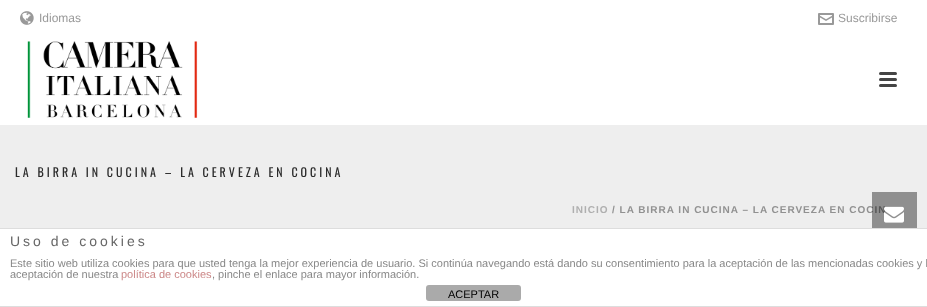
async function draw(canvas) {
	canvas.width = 927;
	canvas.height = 307;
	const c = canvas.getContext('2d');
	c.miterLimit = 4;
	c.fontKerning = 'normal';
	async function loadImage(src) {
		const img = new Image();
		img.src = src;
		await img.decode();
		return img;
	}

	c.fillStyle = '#eee';
	c.fillRect(0, 0, 927, 307);
	c.fillStyle = '#fff';
	c.fillRect(0, 0, 927, 125);
	c.drawImage(await loadImage('img1.png'), 27, 41, 171, 77);
	c.fillStyle = '#444';
	c.beginPath();
	c.roundRect(879, 72, 18, 3, 1.5);
	c.fill();
	c.beginPath();
	c.roundRect(879, 78, 18, 3, 1.5);
	c.fill();
	c.beginPath();
	c.roundRect(879, 84, 18, 3, 1.5);
	c.fill();
	c.drawImage(await loadImage('img2.png'), 20, 11, 14, 14);
	c.font = '12px Liberation Sans';
	c.fillStyle = '#999';
	c.fillText('Idiomas', 39, 22);
	c.drawImage(await loadImage('img3.png'), 818, 13, 16, 12);
	c.fillText('Suscribirse', 838, 22);
	c.letterSpacing = '3px';
	c.font = '12px Oswald';
	c.fillStyle = '#2b2b2b';
	c.fillText('LA BIRRA IN CUCINA – LA CERVEZA EN COCINA', 15, 177);
	c.letterSpacing = '1px';
	c.font = 'bold 10px Liberation Sans';
	c.fillStyle = '#afafaf';
	c.fillText('INICIO', 572, 213);
	c.fillStyle = '#919191';
	c.fillText('/ LA BIRRA IN CUCINA – LA CERVEZA EN COCIN', 612, 213);
	c.fillStyle = '#00000066';
	c.fillRect(872, 192, 45, 36);
	c.drawImage(await loadImage('img4.png'), 884, 206, 20, 17);
	for (const [x, y, w, h, color] of [
		[0, 229, 927, 77, '#fff'],
		[0, 228, 927, 1, '#ddd'],
		[0, 306, 927, 1, '#ddd'],
	]) {
		c.fillStyle = color;
		c.fillRect(x, y, w, h);
	}
	c.letterSpacing = '3px';
	c.font = '14px Liberation Sans';
	c.fillStyle = '#666';
	c.fillText('Uso de cookies', 10, 246);
	c.letterSpacing = '0px';
	c.font = '11px Liberation Sans';
	c.fillStyle = '#888';
	c.fillText('Este sitio web utiliza cookies para que usted tenga la mejor experiencia de usuario. Si continúa navegando está dando su consentimiento para la aceptación de las mencionadas cookies y l', 10, 267);
	c.fillText('aceptación de nuestra', 10, 278);
	c.fillStyle = '#c88';
	c.fillText('política de cookies', 121, 278);
	c.fillStyle = '#888';
	c.fillText(', pinche el enlace para mayor información.', 212, 278);
	c.fillStyle = '#aaa';
	c.beginPath();
	c.roundRect(426, 285, 95, 16, 3);
	c.fill();
	c.fillStyle = '#000';
	c.fillText('ACEPTAR', 448, 298);
}

draw(document.querySelector('canvas'));
